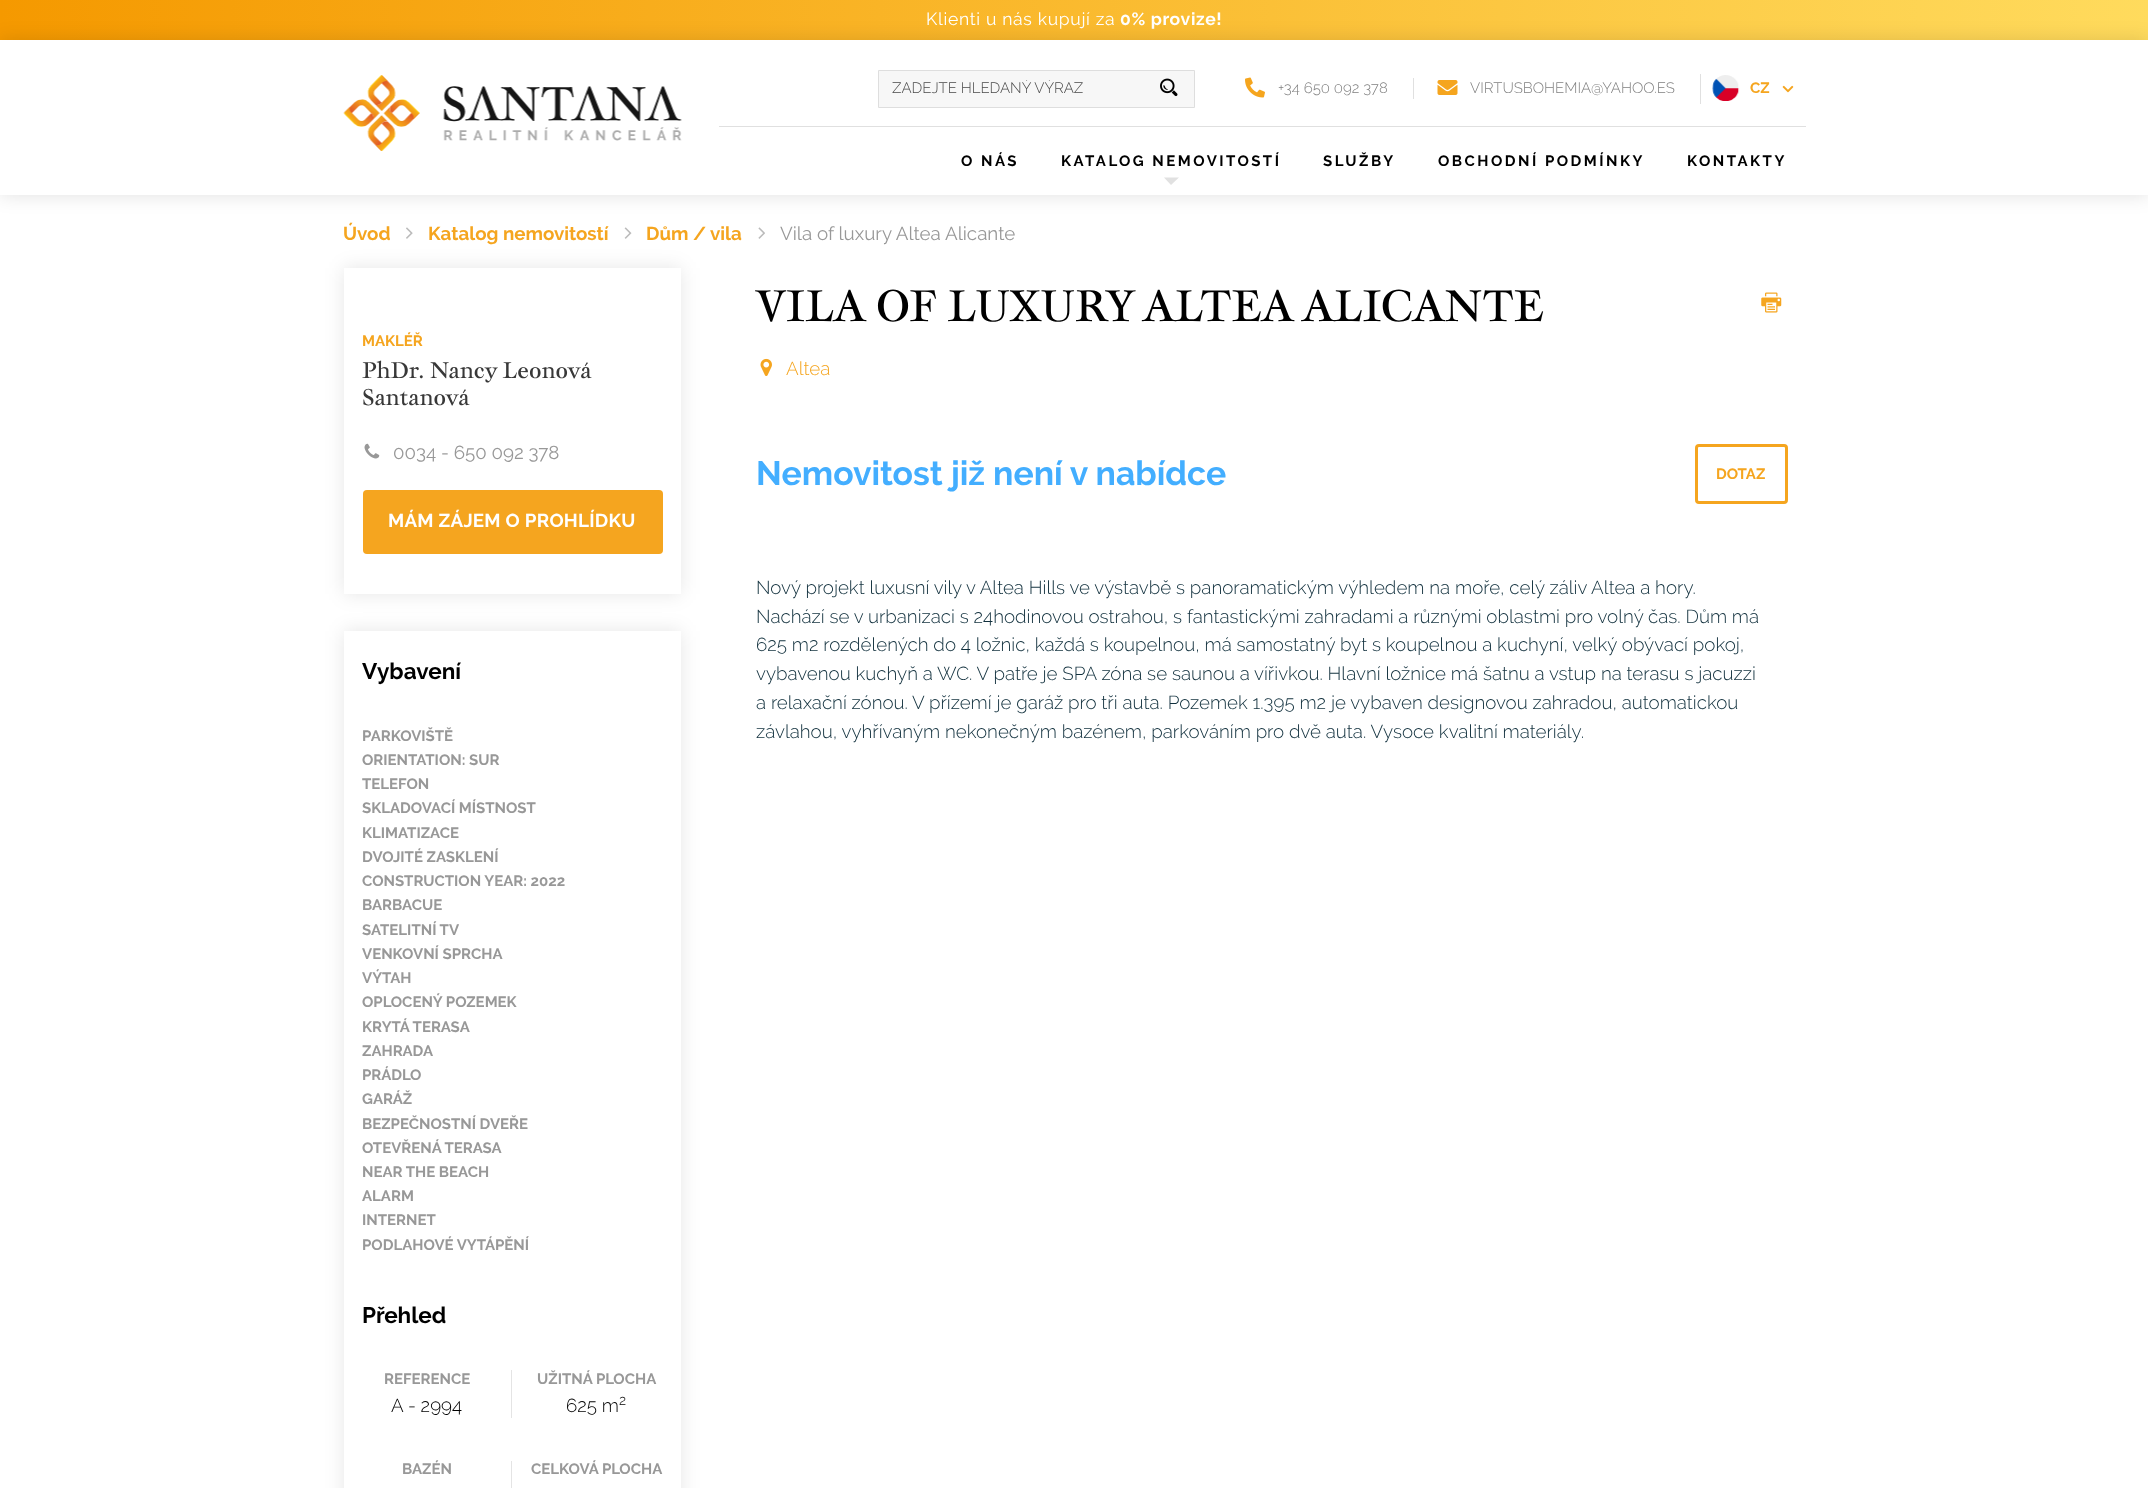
async function draw(canvas) {
	canvas.width = 2148;
	canvas.height = 1488;
	const c = canvas.getContext('2d');
	c.miterLimit = 4;
	c.fontKerning = 'normal';
	async function loadImage(src) {
		const img = new Image();
		img.src = src;
		await img.decode();
		return img;
	}
	let gradient;

	c.fillStyle = '#fff';
	c.fillRect(0, 0, 2148, 1488);
	gradient = c.createLinearGradient(0, 20, 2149, 20);
	gradient.addColorStop(0, '#f59900');
	gradient.addColorStop(1, '#ffdb5d');
	c.fillStyle = gradient;
	c.fillRect(0, 0, 2148, 40);
	c.letterSpacing = '0.7px';
	c.font = '17.5px Raleway';
	c.fillStyle = '#fff';
	c.fillText('Klienti u nás kupují za', 926, 25);
	c.font = 'bold 17.5px Raleway';
	c.fillText('0% provize!', 1120, 25);
	c.save();
	c.beginPath();
	c.moveTo(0, 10);
	c.lineTo(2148, 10);
	c.lineTo(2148, 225);
	c.lineTo(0, 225);
	c.closePath();
	c.moveTo(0, 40);
	c.lineTo(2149, 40);
	c.lineTo(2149, 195);
	c.lineTo(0, 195);
	c.closePath();
	c.clip('evenodd');
	c.fillStyle = '#0000001f';
	c.filter = 'blur(9.5px)';
	c.beginPath();
	c.rect(0, 40, 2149, 155);
	c.fill();
	c.filter = 'none';
	c.restore();
	c.drawImage(await loadImage('img1.png'), 343, 75, 339, 76);
	c.fillStyle = '#e0e0e0';
	c.fillRect(719, 126, 1087, 1);
	c.fillStyle = '#f7f7f7';
	c.beginPath();
	c.rect(878.5, 70.5, 316, 37);
	c.fill();
	c.strokeStyle = '#dedede';
	c.stroke();
	c.save();
	c.beginPath();
	c.rect(891, 80, 240, 18);
	c.clip();
	c.letterSpacing = '0px';
	c.font = '300 15px Raleway';
	c.fillStyle = '#4a4a4a';
	c.fillText('ZADEJTE HLEDANÝ VÝRAZ', 892, 93);
	c.restore();
	c.drawImage(await loadImage('img2.png'), 1160, 78, 18, 19);
	c.drawImage(await loadImage('img3.png'), 1245, 77, 20, 21);
	c.letterSpacing = '0px';
	c.font = '300 15px Raleway';
	c.fillStyle = '#808080';
	c.fillText('+34 650 092 378', 1278, 93);
	c.fillStyle = '#e0e0e0';
	c.fillRect(1413, 78, 1, 21);
	c.drawImage(await loadImage('img4.png'), 1437, 80, 21, 15);
	c.fillStyle = '#808080';
	c.fillText('VIRTUSBOHEMIA@YAHOO.ES', 1470, 93);
	c.fillStyle = '#e0e0e0';
	c.fillRect(1700, 74, 1, 30);
	c.drawImage(await loadImage('img5.png'), 1712, 75, 28, 26);
	c.font = 'bold 15px Raleway';
	c.fillStyle = '#f5a51f';
	c.fillText('CZ', 1750, 93);
	c.drawImage(await loadImage('img6.png'), 1782, 85, 12, 8);
	c.letterSpacing = '2.5px';
	c.fillStyle = '#000';
	c.fillText('O NÁS', 961, 166);
	c.fillText('KATALOG NEMOVITOSTÍ', 1061, 166);
	c.fillStyle = '#e1e1e1';
	c.beginPath();
	c.moveTo(1164, 177.5);
	c.lineTo(1179, 177.5);
	c.lineTo(1171, 185);
	c.closePath();
	c.fill();
	c.fillStyle = '#000';
	for (const [text, x, y] of [
		['SLUŽBY', 1323, 166],
		['OBCHODNÍ PODMÍNKY', 1438, 166],
		['KONTAKTY', 1687, 166],
	]) {
		c.fillText(text, x, y);
	}
	c.letterSpacing = '0px';
	c.font = 'bold 18.75px Raleway';
	c.fillStyle = '#f5a51f';
	c.fillText('Úvod', 343, 240);
	c.drawImage(await loadImage('img7.png'), 406, 227, 7, 12);
	c.fillText('Katalog nemovitostí', 428, 240);
	c.drawImage(await loadImage('img8.png'), 624, 227, 8, 12);
	c.fillText('Dům / vila', 646, 240);
	c.drawImage(await loadImage('img9.png'), 758, 227, 7, 12);
	c.font = '18.75px Raleway';
	c.fillStyle = '#989898';
	c.fillText('Vila of luxury Altea Alicante', 780, 240);
	c.save();
	c.beginPath();
	c.moveTo(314, 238);
	c.lineTo(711, 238);
	c.lineTo(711, 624);
	c.lineTo(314, 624);
	c.closePath();
	c.moveTo(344, 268);
	c.lineTo(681, 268);
	c.lineTo(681, 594);
	c.lineTo(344, 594);
	c.closePath();
	c.clip('evenodd');
	c.fillStyle = '#0000001a';
	c.filter = 'blur(9.5px)';
	c.beginPath();
	c.rect(344, 268, 337, 326);
	c.fill();
	c.filter = 'none';
	c.restore();
	c.fillStyle = '#fff';
	c.fillRect(351, 593, 323, 1);
	c.font = 'bold 15px Raleway';
	c.fillStyle = '#f5a51f';
	c.fillText('MAKLÉŘ', 362, 346);
	c.font = '22.5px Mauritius';
	c.fillStyle = '#383838';
	c.fillText('PhDr. Nancy Leonová', 362, 378);
	c.fillText('Santanová', 362, 405);
	c.drawImage(await loadImage('img10.png'), 364, 443, 16, 16);
	c.font = '18.75px Raleway';
	c.fillStyle = '#989898';
	c.fillText('0034 - 650 092 378', 393, 459);
	c.fillStyle = '#f5a51f';
	c.beginPath();
	c.roundRect(363, 490, 300, 64, 4);
	c.fill();
	c.letterSpacing = '0.25px';
	c.font = 'bold 18.75px Raleway';
	c.fillStyle = '#fff';
	c.fillText('MÁM ZÁJEM O PROHLÍDKU', 388, 527);
	c.fillStyle = '#0000001a';
	c.filter = 'blur(9.5px)';
	c.beginPath();
	c.rect(344, 631, 337, 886);
	c.fill();
	c.filter = 'none';
	c.fillStyle = '#fff';
	c.fillRect(344, 631, 337, 857);
	c.letterSpacing = '0px';
	c.font = 'bold 22.5px Raleway';
	c.fillStyle = '#000';
	c.fillText('Vybavení', 362, 679);
	c.font = 'bold 15px Raleway';
	c.fillStyle = '#989898';
	for (const [text, x, y] of [
		['PARKOVIŠTĚ', 362, 741],
		['ORIENTATION: SUR', 362, 765],
		['TELEFON', 362, 789],
		['SKLADOVACÍ MÍSTNOST', 362, 813],
		['KLIMATIZACE', 362, 838],
		['DVOJITÉ ZASKLENÍ', 362, 862],
		['CONSTRUCTION YEAR: 2022', 362, 886],
		['BARBACUE', 362, 910],
		['SATELITNÍ TV', 362, 935],
		['VENKOVNÍ SPRCHA', 362, 959],
		['VÝTAH', 362, 983],
		['OPLOCENÝ POZEMEK', 362, 1007],
		['KRYTÁ TERASA', 362, 1032],
		['ZAHRADA', 362, 1056],
		['PRÁDLO', 362, 1080],
		['GARÁŽ', 362, 1104],
		['BEZPEČNOSTNÍ DVEŘE', 362, 1129],
		['OTEVŘENÁ TERASA', 362, 1153],
		['NEAR THE BEACH', 362, 1177],
		['ALARM', 362, 1201],
		['INTERNET', 362, 1225],
		['PODLAHOVÉ VYTÁPĚNÍ', 362, 1250],
	]) {
		c.fillText(text, x, y);
	}
	c.font = 'bold 22.5px Raleway';
	c.fillStyle = '#000';
	c.fillText('Přehled', 362, 1323);
	c.fillStyle = '#e4e4e4';
	c.fillRect(511, 1370, 1, 48);
	c.font = 'bold 15px Raleway';
	c.fillStyle = '#989898';
	c.fillText('REFERENCE', 384, 1384);
	c.font = '300 18.75px Raleway';
	c.fillStyle = '#000';
	c.fillText('A - 2994', 391, 1412);
	c.font = 'bold 15px Raleway';
	c.fillStyle = '#989898';
	c.fillText('UŽITNÁ PLOCHA', 537, 1384);
	c.font = '300 18.75px Raleway';
	c.fillStyle = '#000';
	c.fillText('625 m', 566, 1412);
	c.font = '300 14px Raleway';
	c.fillText('2', 619, 1405);
	c.fillStyle = '#e4e4e4';
	c.fillRect(511, 1461, 1, 27);
	c.font = 'bold 15px Raleway';
	c.fillStyle = '#989898';
	c.fillText('BAZÉN', 402, 1474);
	c.fillText('CELKOVÁ PLOCHA', 531, 1474);
	c.font = '43.75px Mauritius';
	c.fillStyle = '#000';
	c.fillText('VILA OF LUXURY ALTEA ALICANTE', 756, 321);
	c.drawImage(await loadImage('img11.png'), 760, 358, 12, 18);
	c.font = '300 18.75px Raleway';
	c.fillStyle = '#f5a51f';
	c.fillText('Altea', 786, 375);
	c.drawImage(await loadImage('img12.png'), 1761, 292, 21, 21);
	c.font = 'bold 33.75px Raleway';
	c.fillStyle = '#43aeff';
	c.fillText('Nemovitost již není v nabídce', 756, 485);
	c.beginPath();
	c.roundRect(1696.5, 445.5, 90, 57, 2.5);
	c.strokeStyle = '#f5a51f';
	c.lineWidth = 3;
	c.stroke();
	c.font = 'bold 15px Raleway';
	c.fillStyle = '#f5a51f';
	c.fillText('DOTAZ', 1716, 479);
	c.font = '300 18.75px Raleway';
	c.fillStyle = '#11303d';
	for (const [text, x, y] of [
		['Nový projekt luxusní vily v Altea Hills ve výstavbě s panoramatickým výhledem na moře, celý záliv Altea a hory.', 756, 594],
		['Nachází se v urbanizaci s 24hodinovou ostrahou, s fantastickými zahradami a různými oblastmi pro volný čas. Dům má', 756, 623],
		['625 m2 rozdělených do 4 ložnic, každá s koupelnou, má samostatný byt s koupelnou a kuchyní, velký obývací pokoj,', 756, 651],
		['vybavenou kuchyň a WC. V patře je SPA zóna se saunou a vířivkou. Hlavní ložnice má šatnu a vstup na terasu s jacuzzi', 756, 680],
		['a relaxační zónou. V přízemí je garáž pro tři auta. Pozemek 1.395 m2 je vybaven designovou zahradou, automatickou', 756, 709],
		['závlahou, vyhřívaným nekonečným bazénem, parkováním pro dvě auta. Vysoce kvalitní materiály.', 756, 738],
	]) {
		c.fillText(text, x, y);
	}
}

draw(document.querySelector('canvas'));
